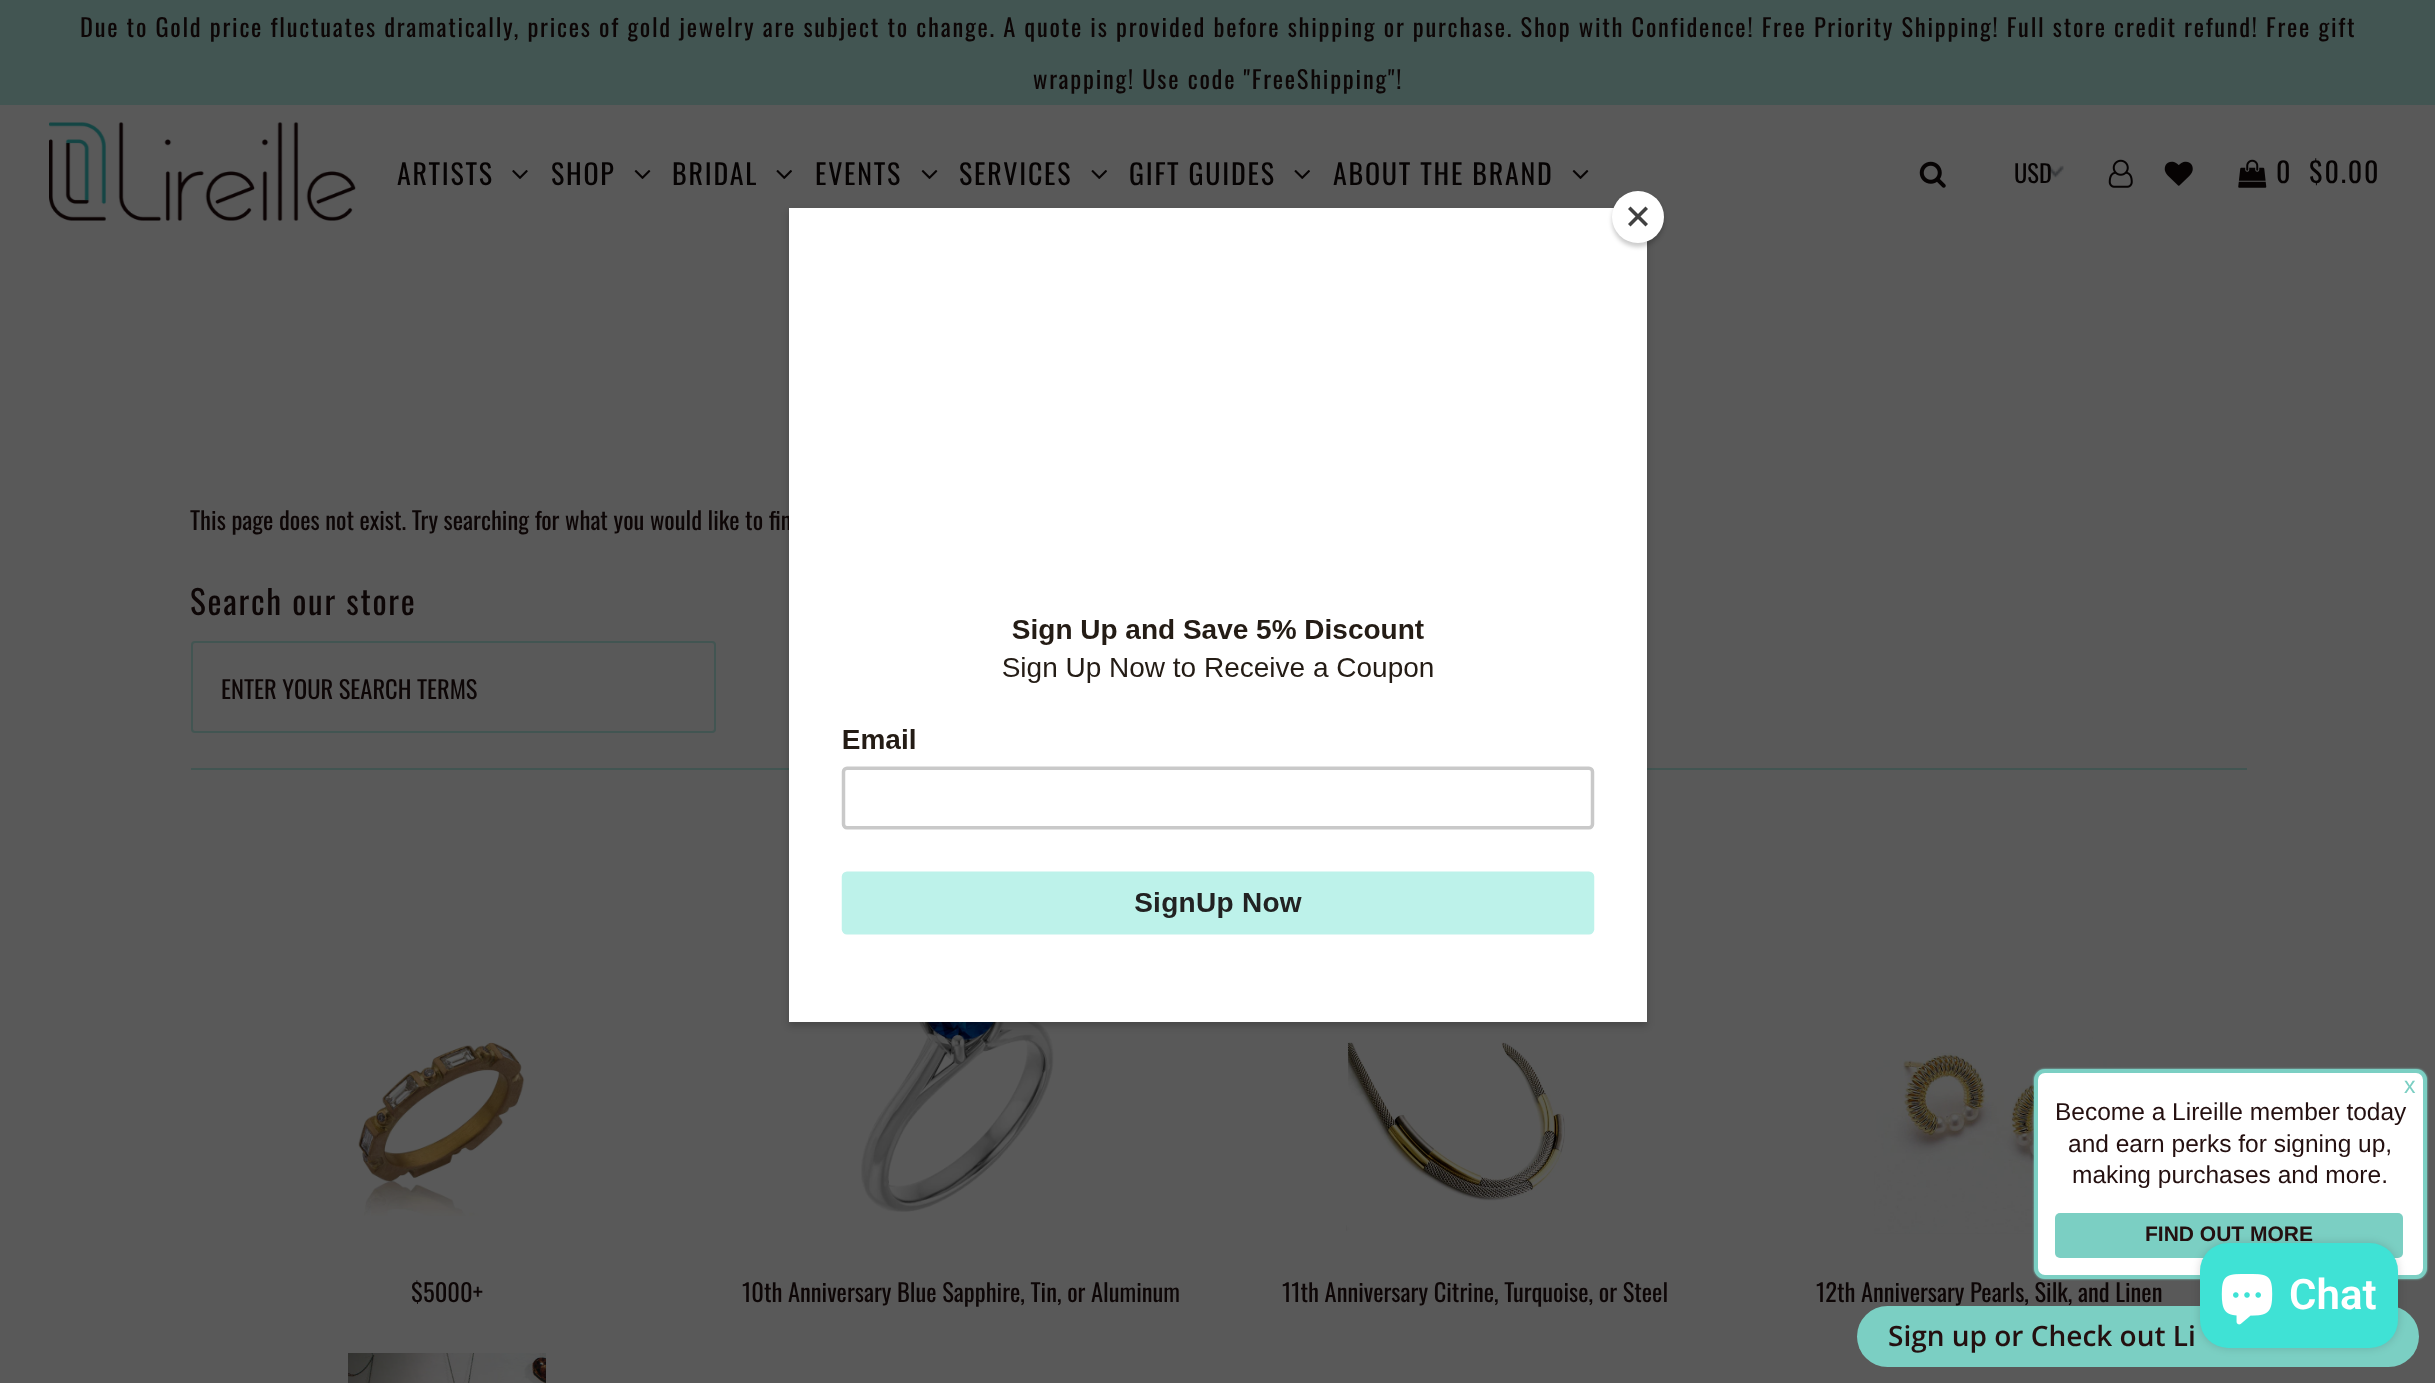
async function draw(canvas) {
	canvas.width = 2435;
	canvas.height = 1383;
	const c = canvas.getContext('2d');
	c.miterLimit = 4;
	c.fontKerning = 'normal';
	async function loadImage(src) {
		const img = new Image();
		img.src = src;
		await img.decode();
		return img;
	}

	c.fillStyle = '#595959';
	c.fillRect(0, 0, 2435, 1383);
	c.fillStyle = '#425552';
	c.fillRect(0, 0, 2435, 105);
	c.letterSpacing = '1.75px';
	c.font = '24.5px Oswald';
	c.fillStyle = '#0d0606';
	c.fillText('Due to Gold price fluctuates dramatically, prices of gold jewelry are subject to change. A quote is provided before shipping or purchase. Shop with Confidence! Free Priority Shipping! Full store credit refund! Free gift', 80, 37);
	c.fillText('wrapping! Use code "FreeShipping"!', 1033, 89);
	c.drawImage(await loadImage('img1.png'), 49, 122, 307, 99);
	c.font = '28px Oswald';
	c.fillStyle = '#060303';
	c.fillText('ARTISTS', 397, 185);
	c.drawImage(await loadImage('img2.png'), 512, 170, 16, 9);
	c.fillText('SHOP', 551, 185);
	c.drawImage(await loadImage('img3.png'), 634, 170, 17, 9);
	c.fillText('BRIDAL', 672, 185);
	c.drawImage(await loadImage('img4.png'), 776, 170, 16, 9);
	c.fillText('EVENTS', 815, 185);
	c.drawImage(await loadImage('img3.png'), 921, 170, 17, 9);
	c.fillText('SERVICES', 959, 185);
	c.drawImage(await loadImage('img4.png'), 1091, 170, 16, 9);
	c.fillText('GIFT GUIDES', 1129, 185);
	c.drawImage(await loadImage('img4.png'), 1294, 170, 16, 9);
	c.fillText('ABOUT THE BRAND', 1333, 185);
	c.drawImage(await loadImage('img3.png'), 1572, 170, 17, 9);
	c.drawImage(await loadImage('img5.png'), 1919, 161, 27, 27);
	c.drawImage(await loadImage('img6.png'), 2047, 165, 17, 13);
	c.letterSpacing = '0px';
	c.font = '24.5px Oswald';
	c.fillText('USD', 2014, 183);
	c.drawImage(await loadImage('img7.png'), 2108, 159, 25, 29);
	c.drawImage(await loadImage('img8.png'), 2164, 161, 29, 25);
	c.drawImage(await loadImage('img9.png'), 2238, 159, 29, 29);
	c.letterSpacing = '1.75px';
	c.font = '28px Oswald';
	c.fillText('0', 2276, 183);
	c.fillText('$0.00', 2309, 183);
	c.letterSpacing = '0px';
	c.font = '24.5px Oswald';
	c.fillStyle = '#0d0606';
	c.fillText('This page does not exist. Try searching for what you would like to fin', 190, 530);
	c.fillStyle = '#425552';
	c.fillRect(191, 768, 2056, 2);
	c.letterSpacing = '1.75px';
	c.font = '33.25px Oswald';
	c.fillStyle = '#0d0606';
	c.fillText('Search our store', 190, 615);
	c.beginPath();
	c.roundRect(192, 642, 523, 90, 3);
	c.strokeStyle = '#425552';
	c.lineWidth = 2;
	c.stroke();
	c.letterSpacing = '0px';
	c.font = '24.5px Oswald';
	c.fillText('ENTER YOUR SEARCH TERMS', 221, 699);
	c.drawImage(await loadImage('img10.png'), 358, 1041, 167, 175);
	c.fillText('$5000+', 411, 1302);
	c.drawImage(await loadImage('img11.png'), 861, 1022, 193, 190);
	c.fillText('10th Anniversary Blue Sapphire, Tin, or Aluminum', 742, 1302);
	c.drawImage(await loadImage('img12.png'), 1346, 1042, 219, 189);
	c.fillText('11th Anniversary Citrine, Turquoise, or Steel', 1282, 1302);
	c.drawImage(await loadImage('img13.png'), 1874, 1037, 247, 197);
	c.fillText('12th Anniversary Pearls, Silk, and Linen', 1816, 1302);
	c.drawImage(await loadImage('img14.png'), 348, 1353, 198, 30);
	c.fillStyle = '#00000033';
	c.filter = 'blur(3.5px)';
	c.beginPath();
	c.rect(789, 212, 858, 814);
	c.fill();
	c.filter = 'none';
	c.drawImage(await loadImage('img15.png'), 789, 208, 858, 814);
	c.filter = 'blur(2px)';
	c.beginPath();
	c.roundRect(1612, 194, 52, 53, 26);
	c.fill();
	c.filter = 'none';
	c.fillStyle = '#fff';
	c.beginPath();
	c.arc(1638, 217, 26, 0, 2 * Math.PI);
	c.fill();
	c.fillStyle = '#414141';
	c.beginPath();
	c.moveTo(1645.5, 206.5);
	c.lineTo(1648, 209);
	c.lineTo(1630.5, 226.5);
	c.lineTo(1628, 224);
	c.closePath();
	c.fill();
	c.beginPath();
	c.moveTo(1628, 209);
	c.lineTo(1630.5, 206.5);
	c.lineTo(1648, 224);
	c.lineTo(1645.5, 226.5);
	c.closePath();
	c.fill();
	c.fillStyle = '#7bcfc3';
	c.filter = 'blur(1px)';
	c.beginPath();
	c.roundRect(2034, 1069, 393, 210, 11);
	c.fill();
	c.filter = 'none';
	c.fillStyle = '#fff';
	c.beginPath();
	c.roundRect(2036, 1071, 389, 206, 9);
	c.fill();
	c.strokeStyle = '#7bcfc3';
	c.lineWidth = 4;
	c.stroke();
	c.font = '23px Liberation Sans';
	c.fillStyle = '#7bcfc3';
	c.fillText('x', 2404, 1093);
	c.font = '24.5px Liberation Sans';
	c.fillStyle = '#241010';
	for (const [text, x, y] of [
		['Become a Lireille member today', 2055, 1120],
		['and earn perks for signing up,', 2068, 1152],
		['making purchases and more.', 2072, 1183],
	]) {
		c.fillText(text, x, y);
	}
	c.fillStyle = '#7bcfc3';
	c.beginPath();
	c.roundRect(2055, 1213, 348, 45, 5);
	c.fill();
	c.font = 'bold 21px Liberation Sans';
	c.fillStyle = '#241010';
	c.fillText('FIND OUT MORE', 2145, 1241);
	c.fillStyle = '#7bcfc3';
	c.beginPath();
	c.roundRect(1857, 1306, 562, 61, 30.5);
	c.fill();
	c.fillStyle = '#00000026';
	c.filter = 'blur(4.5px)';
	c.beginPath();
	c.roundRect(2200, 1243, 198, 105, 28);
	c.fill();
	c.filter = 'none';
	c.fillStyle = '#3fe2d5';
	c.beginPath();
	c.roundRect(2200, 1243, 198, 105, 28);
	c.fill();
	c.drawImage(await loadImage('img16.png'), 2221, 1274, 52, 51);
	c.font = '600 42px Roboto';
	c.fillStyle = '#fff';
	c.fillText('Chat', 2289, 1309);
	c.font = '600 28px Open Sans';
	c.fillStyle = '#241010';
	c.fillText('Sign up or Check out Li', 1888, 1346);
}

draw(document.querySelector('canvas'));
